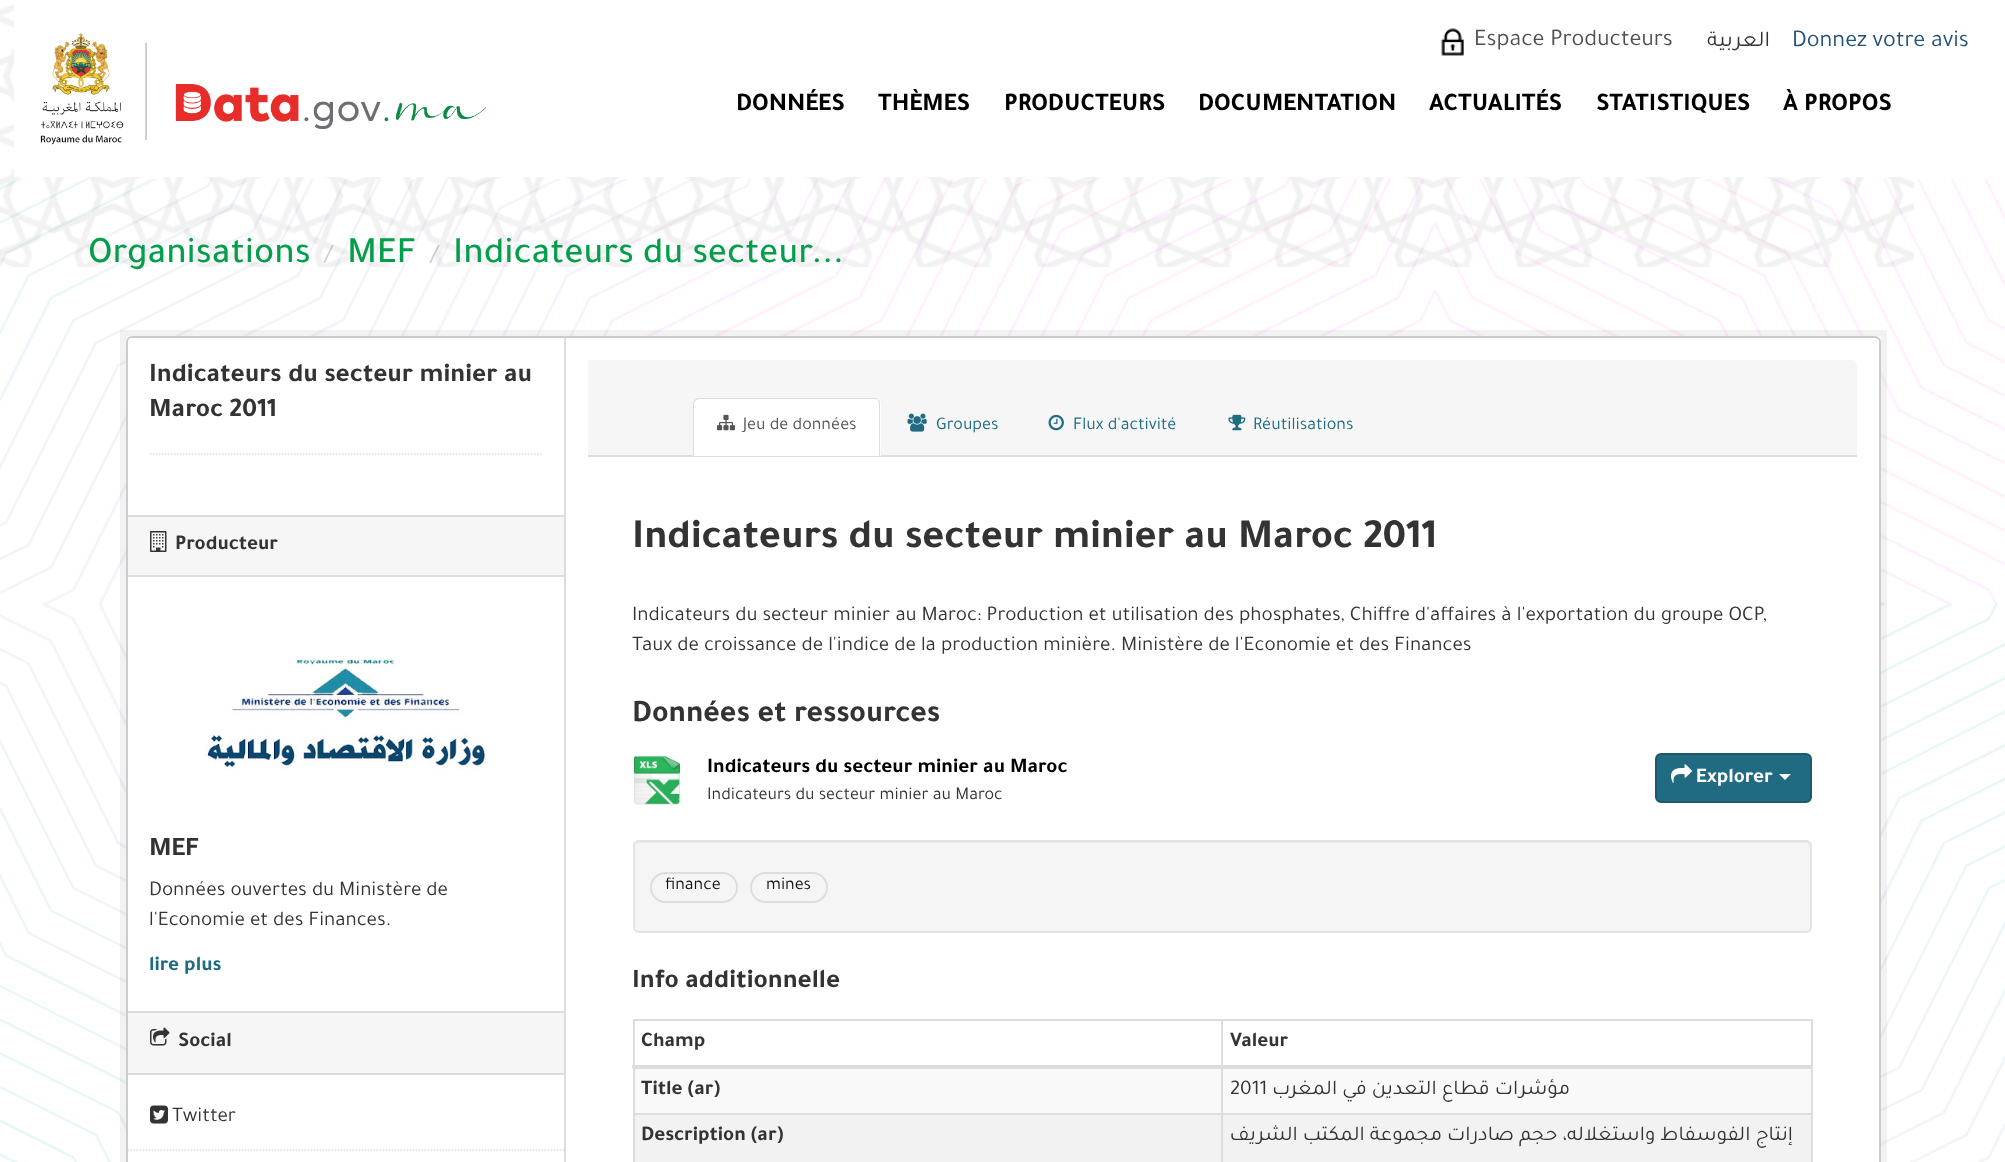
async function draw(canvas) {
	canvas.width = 2005;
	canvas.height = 1162;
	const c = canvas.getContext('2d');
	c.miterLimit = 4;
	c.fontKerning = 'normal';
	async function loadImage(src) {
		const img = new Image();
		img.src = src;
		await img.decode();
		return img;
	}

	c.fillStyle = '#fff';
	c.fillRect(0, 0, 2005, 1162);
	c.drawImage(await loadImage('img4.png'), 0, 179, 2005, 983);
	c.font = '500 37.5px Tajawal';
	c.fillStyle = '#00a04a';
	c.fillText('Organisations', 88, 262);
	c.font = '27px Tajawal';
	c.fillStyle = '#ccc';
	c.fillText('/', 324, 262);
	c.font = '500 37.5px Tajawal';
	c.fillStyle = '#00a04a';
	c.fillText('MEF', 347, 262);
	c.font = '27px Tajawal';
	c.fillStyle = '#ccc';
	c.fillText('/', 430, 262);
	c.font = '500 37.5px Tajawal';
	c.fillStyle = '#00a04a';
	c.fillText('Indicateurs du secteur...', 453, 262);
	c.drawImage(await loadImage('img1.png'), 0, 4, 1914, 263);
	c.fillStyle = '#fff';
	c.fillRect(14, 4, 1900, 173);
	c.drawImage(await loadImage('img2.png'), 40, 32, 446, 113);
	c.drawImage(await loadImage('img3.png'), 1441, 28, 23, 28);
	c.font = '24px Tajawal';
	c.fillStyle = '#4f4f4f';
	c.fillText('Espace Producteurs', 1474, 45);
	c.direction = 'rtl';
	c.font = '22.5px Tajawal';
	c.fillStyle = '#333';
	c.fillText('العربية', 1770, 46);
	c.direction = 'ltr';
	c.font = '24px Tajawal';
	c.fillStyle = '#23527c';
	c.fillText('Donnez votre avis', 1792, 46);
	c.font = 'bold 25.5px Tajawal';
	c.fillStyle = '#000';
	for (const [text, x, y] of [
		['DONNÉES', 736, 110],
		['THÈMES', 878, 110],
		['PRODUCTEURS', 1004, 110],
		['DOCUMENTATION', 1198, 110],
		['ACTUALITÉS', 1429, 110],
		['STATISTIQUES', 1596, 110],
		['À PROPOS', 1783, 110],
	]) {
		c.fillText(text, x, y);
	}
	c.strokeStyle = '#0000000d';
	c.lineWidth = 6;
	c.strokeRect(123, 333, 1761, 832);
	c.fillStyle = '#fff';
	c.beginPath();
	c.roundRect(127, 337, 1753, 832, 5);
	c.fill();
	c.strokeStyle = '#ccc';
	c.lineWidth = 2;
	c.stroke();
	c.font = 'bold 27px Tajawal';
	c.fillStyle = '#333';
	c.fillText('Indicateurs du secteur minier au', 149, 381);
	c.fillText('Maroc 2011', 149, 416);
	c.beginPath();
	c.moveTo(150, 454);
	c.lineTo(541.5, 454);
	c.strokeStyle = '#ddd';
	c.lineWidth = 1.5;
	c.setLineDash([1.5, 1.5]);
	c.stroke();
	for (const [x, y, w, h, color] of [
		[128, 517, 436, 58, '#f6f6f6'],
		[128, 515, 436, 2, '#ddd'],
		[128, 575, 436, 2, '#ddd'],
	]) {
		c.fillStyle = color;
		c.fillRect(x, y, w, h);
	}
	c.drawImage(await loadImage('img5.png'), 150, 531, 17, 21);
	c.font = 'bold 21px Tajawal';
	c.fillStyle = '#333';
	c.fillText('Producteur', 175, 549);
	c.drawImage(await loadImage('img6.png'), 205, 659, 282, 111);
	c.font = 'bold 27px Tajawal';
	c.fillText('MEF', 149, 855);
	c.font = '21px Tajawal';
	c.fillText('Données ouvertes du Ministère de', 149, 895);
	c.fillText('l\'Economie et des Finances.', 149, 925);
	c.font = 'bold 21px Tajawal';
	c.fillStyle = '#206b82';
	c.fillText('lire plus', 149, 970);
	for (const [x, y, w, h, color] of [
		[128, 1013, 436, 60, '#f6f6f6'],
		[128, 1011, 436, 2, '#ddd'],
		[128, 1073, 436, 2, '#ddd'],
	]) {
		c.fillStyle = color;
		c.fillRect(x, y, w, h);
	}
	c.drawImage(await loadImage('img7.png'), 150, 1027, 20, 19);
	c.fillStyle = '#333';
	c.fillText('Social', 178, 1046);
	c.beginPath();
	c.moveTo(127.5, 1150);
	c.lineTo(564, 1150);
	c.stroke();
	c.drawImage(await loadImage('img8.png'), 150, 1105, 18, 19);
	c.font = '21px Tajawal';
	c.fillText('Twitter', 172, 1121);
	c.fillStyle = '#ddd';
	c.fillRect(564, 338, 2, 824);
	c.fillStyle = '#f6f6f6';
	c.beginPath();
	c.roundRect(588, 360, 1269, 96, [0, 5, 0, 0]);
	c.fill();
	c.fillStyle = '#ddd';
	c.fillRect(588, 455, 1269, 2);
	c.fillStyle = '#fff';
	c.beginPath();
	c.roundRect(693, 398, 188, 58, [6, 6, 0, 0]);
	c.fill();
	c.fillStyle = '#ddd';
	c.beginPath();
	c.moveTo(699, 398);
	c.bezierCurveTo(698, 398, 696, 398, 695, 399);
	c.lineTo(696, 400);
	c.lineTo(699, 399);
	c.lineTo(874, 399);
	c.bezierCurveTo(875, 399, 877, 399, 878, 400);
	c.bezierCurveTo(878, 398, 876, 398, 874, 398);
	c.closePath();
	c.fill();
	c.beginPath();
	c.moveTo(880, 456);
	c.lineTo(880, 404);
	c.bezierCurveTo(880, 402, 880, 400, 878, 400);
	c.bezierCurveTo(878, 401, 879, 402, 879, 404);
	c.lineTo(879, 454);
	c.lineTo(878, 454);
	c.closePath();
	c.fill();
	c.beginPath();
	c.moveTo(693, 456);
	c.lineTo(695, 454);
	c.lineTo(694, 454);
	c.lineTo(694, 403);
	c.lineTo(696, 400);
	c.lineTo(695, 399);
	c.bezierCurveTo(694, 400, 693, 402, 693, 404);
	c.closePath();
	c.fill();
	c.drawImage(await loadImage('img9.png'), 717, 414, 18, 17);
	c.font = '18px Tajawal';
	c.fillStyle = '#555';
	c.fillText('Jeu de données', 743, 429);
	c.drawImage(await loadImage('img10.png'), 907, 413, 20, 19);
	c.fillStyle = '#206b82';
	c.fillText('Groupes', 936, 429);
	c.drawImage(await loadImage('img11.png'), 1048, 414, 16, 17);
	c.fillText('Flux d\'activité', 1073, 429);
	c.drawImage(await loadImage('img12.png'), 1228, 414, 18, 17);
	c.fillText('Réutilisations', 1253, 429);
	c.font = 'bold 42px Tajawal';
	c.fillStyle = '#333';
	c.fillText('Indicateurs du secteur minier au Maroc 2011', 632, 547);
	c.font = '21px Tajawal';
	c.fillText('Indicateurs du secteur minier au Maroc: Production et utilisation des phosphates, Chiffre d\'affaires à l\'exportation du groupe OCP,', 632, 620);
	c.fillText('Taux de croissance de l\'indice de la production minière. Ministère de l\'Economie et des Finances', 632, 650);
	c.font = 'bold 31.5px Tajawal';
	c.fillText('Données et ressources', 632, 721);
	c.drawImage(await loadImage('img13.png'), 634, 756, 46, 49);
	c.font = 'bold 21px Tajawal';
	c.fillStyle = '#000';
	c.fillText('Indicateurs du secteur minier au Maroc', 707, 772);
	c.fillStyle = '#206b82';
	c.beginPath();
	c.roundRect(1656, 754, 155, 48, 5);
	c.fill();
	c.strokeStyle = '#1b5a6e';
	c.lineWidth = 2;
	c.setLineDash([]);
	c.stroke();
	c.drawImage(await loadImage('img14.png'), 1671, 764, 21, 19);
	c.fillStyle = '#fff';
	c.fillText('Explorer', 1696, 782);
	c.beginPath();
	c.moveTo(1779, 774);
	c.lineTo(1791, 774);
	c.lineTo(1785, 780);
	c.closePath();
	c.fill();
	c.font = '18px Tajawal';
	c.fillStyle = '#333';
	c.fillText('Indicateurs du secteur minier au Maroc', 707, 799);
	c.fillStyle = '#f5f5f5';
	c.beginPath();
	c.roundRect(633, 840, 1179, 93, 6);
	c.fill();
	c.fillStyle = '#e9e9e9';
	c.beginPath();
	c.moveTo(639, 843);
	c.lineTo(1806, 843);
	c.bezierCurveTo(1808, 843, 1810, 845, 1810, 848);
	c.lineTo(1810, 928);
	c.lineTo(1809, 931);
	c.bezierCurveTo(1810, 930, 1811, 928, 1811, 927);
	c.lineTo(1811, 847);
	c.bezierCurveTo(1811, 844, 1809, 842, 1806, 842);
	c.lineTo(640, 842);
	c.bezierCurveTo(638, 842, 637, 843, 636, 844);
	c.closePath();
	c.fill();
	c.beginPath();
	c.roundRect(634, 841, 1177, 91, 5);
	c.strokeStyle = '#e3e3e3';
	c.stroke();
	c.fillStyle = '#fff';
	c.beginPath();
	c.moveTo(665, 874);
	c.lineTo(722, 874);
	c.bezierCurveTo(730, 874, 736, 881, 736, 889);
	c.bezierCurveTo(736, 892, 735, 894, 734, 896);
	c.bezierCurveTo(737, 893, 738, 889, 737, 885);
	c.bezierCurveTo(734, 872, 723, 873, 713, 873);
	c.lineTo(663, 873);
	c.bezierCurveTo(656, 875, 651, 881, 651, 888);
	c.bezierCurveTo(651, 881, 657, 874, 665, 874);
	c.closePath();
	c.fill();
	c.beginPath();
	c.roundRect(651, 873, 86, 29, 14.5);
	c.strokeStyle = '#ddd';
	c.stroke();
	c.fillStyle = '#111';
	c.fillText('finance', 665, 889);
	c.fillStyle = '#fff';
	c.beginPath();
	c.moveTo(766, 874);
	c.lineTo(812, 874);
	c.bezierCurveTo(820, 874, 826, 881, 826, 889);
	c.bezierCurveTo(826, 892, 825, 894, 824, 896);
	c.bezierCurveTo(827, 893, 828, 889, 827, 885);
	c.bezierCurveTo(824, 873, 814, 873, 805, 873);
	c.lineTo(764, 873);
	c.bezierCurveTo(757, 875, 752, 881, 752, 888);
	c.bezierCurveTo(752, 881, 758, 874, 766, 874);
	c.closePath();
	c.fill();
	c.beginPath();
	c.roundRect(751, 873, 76, 29, 14.5);
	c.stroke();
	c.fillStyle = '#111';
	c.fillText('mines', 766, 889);
	c.font = 'bold 27px Tajawal';
	c.fillStyle = '#333';
	c.fillText('Info additionnelle', 632, 987);
	for (const [x, y, w, h, color] of [
		[633, 1019, 1179, 2, '#ddd'],
		[1811, 1019, 2, 143, '#ddd'],
		[633, 1019, 2, 143, '#ddd'],
	]) {
		c.fillStyle = color;
		c.fillRect(x, y, w, h);
	}
	c.font = 'bold 21px Tajawal';
	c.fillStyle = '#333';
	c.fillText('Champ', 641, 1046);
	for (const [x, y, w, h, color] of [
		[635, 1069, 1176, 44, '#f9f9f9'],
		[1221, 1068, 591, 1, '#ddd'],
		[1221, 1113, 591, 2, '#ddd'],
		[1221, 1113, 2, 49, '#ddd'],
		[633, 1113, 590, 2, '#ddd'],
		[1221, 1019, 2, 96, '#ddd'],
		[632, 1065, 1180, 3, '#ddd'],
	]) {
		c.fillStyle = color;
		c.fillRect(x, y, w, h);
	}
	c.fillStyle = '#333';
	c.fillText('Valeur', 1230, 1046);
	c.fillStyle = '#ddd';
	c.fillRect(633, 1068, 590, 1);
	c.fillStyle = '#333';
	c.fillText('Title (ar)', 641, 1094);
	c.font = '21px Tajawal';
	c.fillText('2011', 1230, 1094);
	c.direction = 'rtl';
	c.fillText('مؤشرات قطاع التعدين في المغرب', 1570, 1094);
	c.fillStyle = '#f2f2f2';
	c.fillRect(635, 1115, 586, 47);
	c.direction = 'ltr';
	c.font = 'bold 21px Tajawal';
	c.fillStyle = '#333';
	c.fillText('Description (ar)', 641, 1140);
	c.fillStyle = '#f2f2f2';
	c.fillRect(1223, 1115, 588, 47);
	c.direction = 'rtl';
	c.font = '21px Tajawal';
	c.fillStyle = '#333';
	c.fillText('إنتاج الفوسفاط واستغلاله، حجم صادرات مجموعة المكتب الشريف', 1793, 1140);
}

draw(document.querySelector('canvas'));
